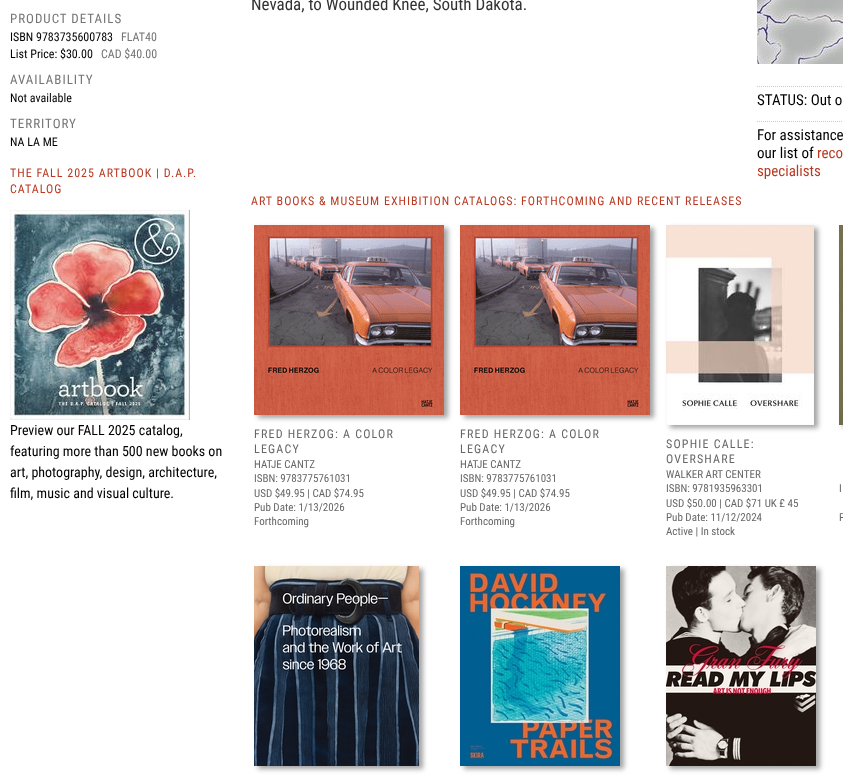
async function draw(canvas) {
	canvas.width = 843;
	canvas.height = 777;
	const c = canvas.getContext('2d');
	c.miterLimit = 4;
	c.fontKerning = 'normal';
	async function loadImage(src) {
		const img = new Image();
		img.src = src;
		await img.decode();
		return img;
	}

	c.fillStyle = '#fff';
	c.fillRect(0, 0, 843, 777);
	c.letterSpacing = '1px';
	c.font = '13px Roboto Condensed';
	c.fillStyle = '#747474';
	c.fillText('PRODUCT DETAILS', 10, 23);
	c.letterSpacing = '0px';
	c.font = '12px Roboto Condensed';
	c.fillStyle = '#000';
	c.fillText('ISBN 9783735600783', 10, 41);
	c.fillStyle = '#747474';
	c.fillText('FLAT40', 121, 41);
	c.fillStyle = '#000';
	c.fillText('List Price: $30.00', 10, 58);
	c.fillStyle = '#747474';
	c.fillText('CAD $40.00', 101, 58);
	c.letterSpacing = '1px';
	c.font = '13px Roboto Condensed';
	c.fillText('AVAILABILITY', 10, 84);
	c.letterSpacing = '0px';
	c.font = '12px Roboto Condensed';
	c.fillStyle = '#000';
	c.fillText('Not available', 10, 102);
	c.letterSpacing = '1px';
	c.font = '13px Roboto Condensed';
	c.fillStyle = '#747474';
	c.fillText('TERRITORY', 10, 128);
	c.letterSpacing = '0px';
	c.font = '12px Roboto Condensed';
	c.fillStyle = '#000';
	c.fillText('NA LA ME', 10, 146);
	c.letterSpacing = '1px';
	c.fillStyle = '#ba3922';
	c.fillText('THE FALL 2025 ARTBOOK | D.A.P.', 10, 177);
	c.fillText('CATALOG', 10, 193);
	c.drawImage(await loadImage('img1.png'), 10, 210, 180, 210);
	c.letterSpacing = '0px';
	c.font = '14px Roboto Condensed';
	c.fillStyle = '#000';
	for (const [text, x, y] of [
		['Preview our FALL 2025 catalog,', 10, 435],
		['featuring more than 500 new books on', 10, 456],
		['art, photography, design, architecture,', 10, 477],
		['film, music and visual culture.', 10, 498],
	]) {
		c.fillText(text, x, y);
	}
	c.font = '17px Roboto Condensed';
	c.fillStyle = '#333';
	c.fillText('Nevada, to Wounded Knee, South Dakota.', 251, 10);
	c.drawImage(await loadImage('img2.png'), 757, 0, 86, 64);
	c.beginPath();
	c.moveTo(757, 86.5);
	c.lineTo(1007, 86.5);
	c.strokeStyle = '#ccc';
	c.setLineDash([1, 1]);
	c.stroke();
	c.font = '15px Roboto Condensed';
	c.fillStyle = '#000';
	c.fillText('STATUS: Out o', 757, 105);
	c.beginPath();
	c.moveTo(757, 121.5);
	c.lineTo(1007, 121.5);
	c.stroke();
	c.fillText('For assistance', 757, 140);
	c.fillText('our list of', 757, 158);
	c.fillStyle = '#ba3922';
	c.fillText('reco', 817, 158);
	c.fillText('specialists', 757, 176);
	c.letterSpacing = '1px';
	c.font = '12px Roboto Condensed';
	c.fillText('ART BOOKS & MUSEUM EXHIBITION CATALOGS: FORTHCOMING AND RECENT RELEASES', 251, 205);
	c.fillStyle = '#a3a3a3';
	c.filter = 'blur(2.5px)';
	c.beginPath();
	c.rect(258, 228, 190, 190);
	c.fill();
	c.filter = 'none';
	c.drawImage(await loadImage('img3.png'), 254, 225, 190, 190);
	c.letterSpacing = '1.2px';
	c.fillStyle = '#666';
	c.fillText('FRED HERZOG: A COLOR', 254, 438);
	c.fillText('LEGACY', 254, 453);
	c.letterSpacing = '0px';
	c.font = '11px Roboto Condensed';
	for (const [text, x, y] of [
		['HATJE CANTZ', 254, 468],
		['ISBN: 9783775761031', 254, 482],
		['USD $49.95 | CAD $74.95', 254, 497],
		['Pub Date: 1/13/2026', 254, 511],
		['Forthcoming', 254, 525],
	]) {
		c.fillText(text, x, y);
	}
	c.fillStyle = '#a3a3a3';
	c.filter = 'blur(2.5px)';
	c.beginPath();
	c.rect(464, 228, 190, 190);
	c.fill();
	c.filter = 'none';
	c.drawImage(await loadImage('img3.png'), 460, 225, 190, 190);
	c.letterSpacing = '1.2px';
	c.font = '12px Roboto Condensed';
	c.fillStyle = '#666';
	c.fillText('FRED HERZOG: A COLOR', 460, 438);
	c.fillText('LEGACY', 460, 453);
	c.letterSpacing = '0px';
	c.font = '11px Roboto Condensed';
	for (const [text, x, y] of [
		['HATJE CANTZ', 460, 468],
		['ISBN: 9783775761031', 460, 482],
		['USD $49.95 | CAD $74.95', 460, 497],
		['Pub Date: 1/13/2026', 460, 511],
		['Forthcoming', 460, 525],
	]) {
		c.fillText(text, x, y);
	}
	c.fillStyle = '#a3a3a3';
	c.filter = 'blur(2.5px)';
	c.beginPath();
	c.rect(670, 228, 148, 200);
	c.fill();
	c.filter = 'none';
	c.drawImage(await loadImage('img4.png'), 666, 225, 148, 200);
	c.letterSpacing = '1.2px';
	c.font = '12px Roboto Condensed';
	c.fillStyle = '#666';
	c.fillText('SOPHIE CALLE:', 666, 448);
	c.fillText('OVERSHARE', 666, 463);
	c.letterSpacing = '0px';
	c.font = '11px Roboto Condensed';
	for (const [text, x, y] of [
		['WALKER ART CENTER', 666, 478],
		['ISBN: 9781935963301', 666, 492],
		['USD $50.00 | CAD $71 UK £ 45', 666, 507],
		['Pub Date: 11/12/2024', 666, 521],
		['Active | In stock', 666, 535],
	]) {
		c.fillText(text, x, y);
	}
	c.fillStyle = '#a3a3a3';
	c.filter = 'blur(2.5px)';
	c.beginPath();
	c.rect(843, 228, 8, 200);
	c.fill();
	c.filter = 'none';
	c.drawImage(await loadImage('img5.png'), 839, 225, 4, 200);
	c.fillStyle = '#666';
	c.fillText('I', 839, 492);
	c.fillText('P', 839, 521);
	c.fillStyle = '#a3a3a3';
	c.filter = 'blur(2.5px)';
	c.beginPath();
	c.rect(258, 569, 165, 200);
	c.fill();
	c.filter = 'none';
	c.drawImage(await loadImage('img6.png'), 254, 566, 165, 200);
	c.filter = 'blur(2.5px)';
	c.beginPath();
	c.rect(464, 569, 160, 200);
	c.fill();
	c.filter = 'none';
	c.drawImage(await loadImage('img7.png'), 460, 566, 160, 200);
	c.filter = 'blur(2.5px)';
	c.beginPath();
	c.rect(670, 569, 150, 200);
	c.fill();
	c.filter = 'none';
	c.drawImage(await loadImage('img8.png'), 666, 566, 150, 200);
}

draw(document.querySelector('canvas'));
